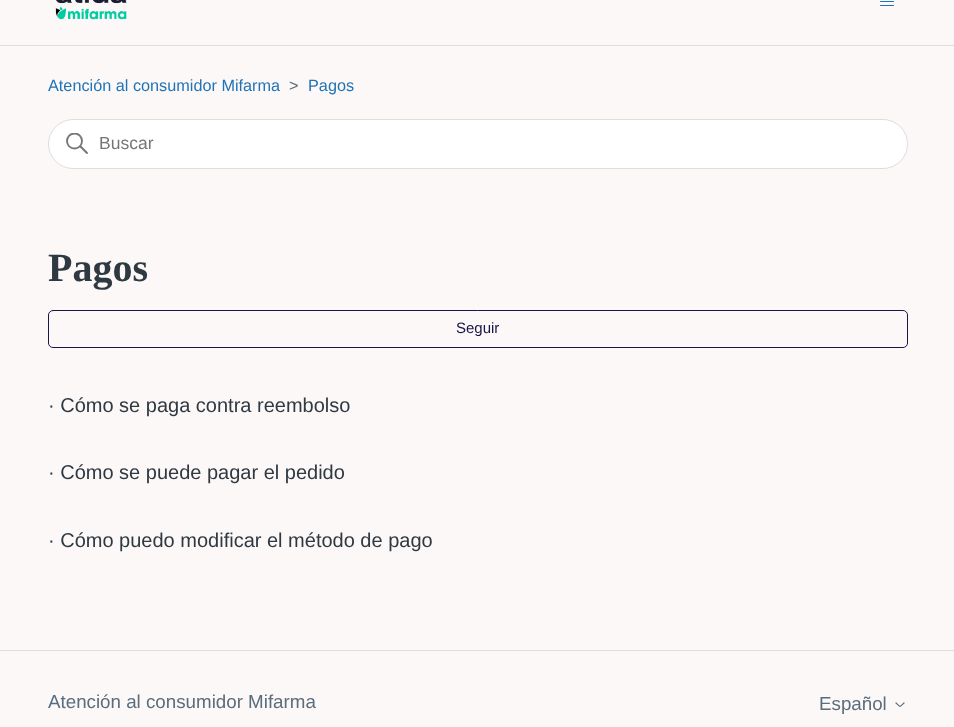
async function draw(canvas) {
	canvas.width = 954;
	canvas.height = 727;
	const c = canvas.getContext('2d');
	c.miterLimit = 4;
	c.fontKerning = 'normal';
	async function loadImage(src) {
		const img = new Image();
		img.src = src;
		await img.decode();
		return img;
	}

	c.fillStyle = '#fcf8f8';
	c.fillRect(0, 0, 954, 727);
	c.drawImage(await loadImage('img1.png'), 55, 0, 72, 20);
	c.beginPath();
	c.moveTo(880.5, -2.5);
	c.lineTo(893.5, -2.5);
	c.moveTo(880.5, 1.5);
	c.lineTo(893.5, 1.5);
	c.moveTo(880.5, 5.5);
	c.lineTo(893.5, 5.5);
	c.strokeStyle = '#1f73b7';
	c.lineCap = 'round';
	c.stroke();
	c.fillStyle = '#ddd';
	c.fillRect(0, 45, 954, 1);
	c.font = '16.25px Liberation Sans';
	c.fillStyle = '#1f73b7';
	c.fillText('Atención al consumidor Mifarma', 48, 91);
	c.fillStyle = '#5a6d7c';
	c.fillText('>', 289, 91);
	c.fillStyle = '#1f73b7';
	c.fillText('Pagos', 308, 91);
	c.fillStyle = '#fff';
	c.beginPath();
	c.roundRect(48.5, 119.5, 859, 49, 24.5);
	c.fill();
	c.strokeStyle = '#ddd';
	c.stroke();
	c.save();
	c.beginPath();
	c.rect(66, 133, 23, 22);
	c.clip();
	c.beginPath();
	c.arc(74.5, 141, 7.5, 0, 2 * Math.PI);
	c.strokeStyle = '#777';
	c.lineWidth = 1.9;
	c.stroke();
	c.restore();
	c.beginPath();
	c.moveTo(87, 153);
	c.lineTo(80.5, 146.5);
	c.strokeStyle = '#777';
	c.lineWidth = 1.9;
	c.stroke();
	c.font = '17.5px Liberation Sans';
	c.fillStyle = '#757575';
	c.fillText('Buscar', 99, 149);
	c.font = 'bold 40px Liberation Serif';
	c.fillStyle = '#2f3941';
	c.fillText('Pagos', 48, 281);
	c.beginPath();
	c.roundRect(48.5, 310.5, 859, 37, 4.5);
	c.strokeStyle = '#181647';
	c.lineWidth = 1;
	c.stroke();
	c.font = '15px Liberation Sans';
	c.fillStyle = '#181647';
	c.fillText('Seguir', 456, 333);
	c.font = '20px Liberation Sans';
	c.fillStyle = '#2f3941';
	for (const [text, x, y] of [
		['· Cómo se paga contra reembolso', 48, 412],
		['· Cómo se puede pagar el pedido', 48, 479],
		['· Cómo puedo modificar el método de pago', 48, 547],
	]) {
		c.fillText(text, x, y);
	}
	c.fillStyle = '#ddd';
	c.fillRect(0, 650, 954, 1);
	c.font = '18.75px Liberation Sans';
	c.fillStyle = '#5a6d7c';
	c.fillText('Atención al consumidor Mifarma', 48, 708);
	c.fillText('Español', 819, 710);
	c.beginPath();
	c.moveTo(896, 703);
	c.bezierCurveTo(901, 707.5, 899, 707.5, 904, 703);
	c.strokeStyle = '#5a6d7c';
	c.lineWidth = 1.2;
	c.stroke();
}

draw(document.querySelector('canvas'));
